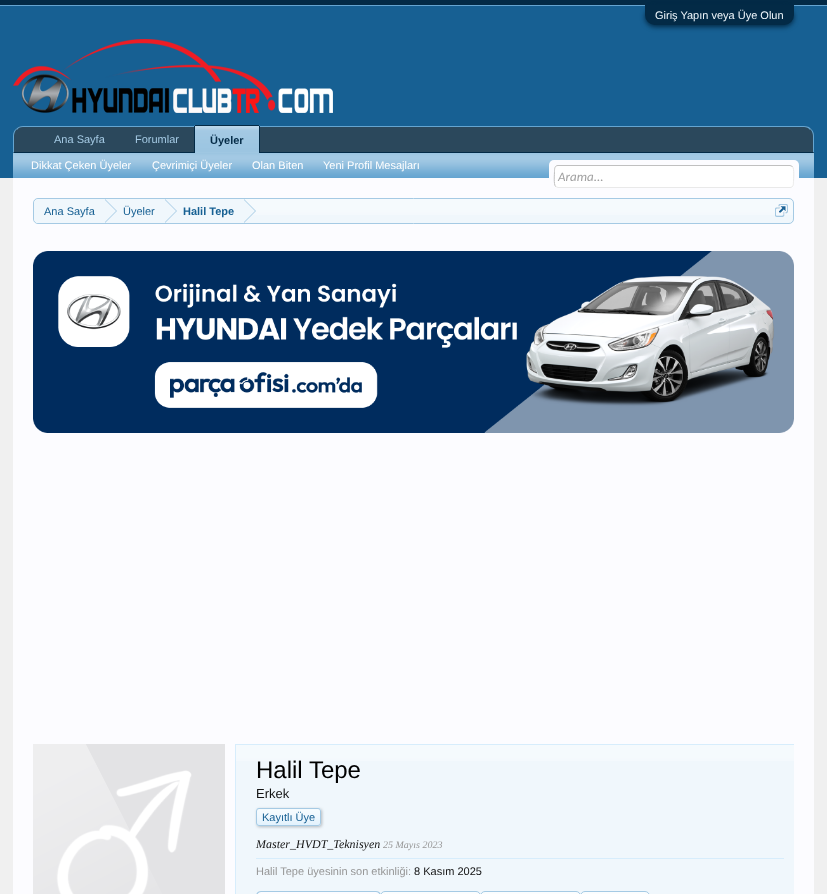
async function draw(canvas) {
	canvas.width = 827;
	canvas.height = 894;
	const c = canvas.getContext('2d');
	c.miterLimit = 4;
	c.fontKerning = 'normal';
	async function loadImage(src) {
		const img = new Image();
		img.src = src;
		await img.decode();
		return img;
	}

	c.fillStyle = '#f0f0f0';
	c.fillRect(0, 0, 827, 894);
	for (const [x, y, w, h, color] of [
		[0, 0, 827, 5, '#032a46'],
		[0, 5, 827, 1, '#65a5d1'],
		[0, 6, 827, 172, '#176093'],
	]) {
		c.fillStyle = color;
		c.fillRect(x, y, w, h);
	}
	c.fillStyle = '#032a46';
	c.filter = 'blur(2.5px)';
	c.beginPath();
	c.roundRect(645, 7, 149, 20, 10);
	c.fill();
	c.filter = 'none';
	c.beginPath();
	c.roundRect(645, 5, 149, 20, [0, 0, 10, 10]);
	c.fill();
	c.font = '11px Liberation Sans';
	c.fillStyle = '#f0f7fc';
	c.fillText('Giriş Yapın veya Üye Olun', 655, 19);
	c.drawImage(await loadImage('img1.png'), 13, 39, 320, 74);
	c.fillStyle = '#2b485c';
	c.beginPath();
	c.roundRect(13, 126, 801, 27, [10, 10, 0, 0]);
	c.fill();
	c.fillStyle = '#65a5d1';
	c.beginPath();
	c.moveTo(23, 126);
	c.bezierCurveTo(20, 126, 18, 127, 16, 129);
	c.lineTo(17, 130);
	c.bezierCurveTo(18, 128, 20, 127, 23, 127);
	c.lineTo(804, 127);
	c.bezierCurveTo(806, 127, 809, 128, 810, 130);
	c.lineTo(811, 129);
	c.bezierCurveTo(810, 127, 807, 126, 804, 126);
	c.closePath();
	c.fill();
	c.beginPath();
	c.moveTo(814, 153);
	c.lineTo(814, 136);
	c.bezierCurveTo(814, 133, 813, 130.5, 811, 129);
	c.lineTo(810.5, 129.5);
	c.bezierCurveTo(812, 131, 813, 133.5, 813, 136);
	c.lineTo(813, 152);
	c.closePath();
	c.fill();
	c.fillStyle = '#032a46';
	c.beginPath();
	c.moveTo(814, 153);
	c.lineTo(813, 152);
	c.lineTo(14, 152);
	c.lineTo(13, 153);
	c.closePath();
	c.fill();
	c.fillStyle = '#65a5d1';
	c.beginPath();
	c.moveTo(13, 153);
	c.lineTo(14, 152);
	c.lineTo(14, 136);
	c.bezierCurveTo(14, 133.5, 15, 131, 16.5, 129.5);
	c.lineTo(16, 129);
	c.bezierCurveTo(14, 130.5, 13, 133, 13, 136);
	c.closePath();
	c.fill();
	c.beginPath();
	c.roundRect(194, 125, 66, 28, [2, 2, 0, 0]);
	c.fill();
	c.drawImage(await loadImage('img2.png'), 195, 126, 64, 27);
	for (const [x, y, w, h, color] of [
		[195, 125, 64, 1, '#032a46'],
		[259, 126, 1, 27, '#032a46'],
		[194, 126, 1, 27, '#032a46'],
	]) {
		c.fillStyle = color;
		c.fillRect(x, y, w, h);
	}
	c.font = 'bold 11px Liberation Sans';
	c.fillText('Üyeler', 210, 144);
	c.fillStyle = '#65a5d1';
	c.fillRect(13, 153, 801, 25);
	c.drawImage(await loadImage('img3.png'), 13, 153, 801, 24);
	c.font = '11px Liberation Sans';
	c.fillStyle = '#fff';
	for (const [text, x, y] of [
		['Dikkat Çeken Üyeler', 31, 169],
		['Çevrimiçi Üyeler', 152, 169],
		['Olan Biten', 252, 169],
		['Yeni Profil Mesajları', 323, 169],
	]) {
		c.fillText(text, x, y);
	}
	c.fillStyle = '#a5cae4';
	c.fillText('Ana Sayfa', 54, 143);
	c.fillText('Forumlar', 135, 143);
	c.fillStyle = '#fcfcff';
	c.fillRect(13, 178, 801, 716);
	c.beginPath();
	c.roundRect(549, 160, 250, 28, 5);
	c.fill();
	c.fillStyle = '#fff';
	c.beginPath();
	c.roundRect(554, 165, 240, 23, 4);
	c.fill();
	c.beginPath();
	c.moveTo(792.5, 166.5);
	c.bezierCurveTo(794.5, 169, 793.5, 178.5, 793.5, 181.5);
	c.bezierCurveTo(793.5, 184, 793.5, 187.5, 790, 187.5);
	c.lineTo(558, 187.5);
	c.lineTo(555.5, 186.5);
	c.strokeStyle = '#e9e9e9';
	c.stroke();
	c.beginPath();
	c.moveTo(555.5, 186.5);
	c.bezierCurveTo(553.5, 184, 554.5, 174.5, 554.5, 171.5);
	c.bezierCurveTo(554.5, 169, 554.5, 165.5, 558, 165.5);
	c.lineTo(790, 165.5);
	c.lineTo(792.5, 166.5);
	c.strokeStyle = '#c0c0c0';
	c.stroke();
	c.font = 'italic 13px Carlito';
	c.fillStyle = '#a0a0a0';
	c.fillText('Arama...', 558, 181);
	c.fillStyle = '#f0f7fc';
	c.beginPath();
	c.roundRect(33, 198, 761, 26, 5);
	c.fill();
	c.drawImage(await loadImage('img4.png'), 33, 199, 761, 16);
	c.beginPath();
	c.roundRect(33.5, 198.5, 760, 25, 4.5);
	c.strokeStyle = '#a5cae4';
	c.stroke();
	c.save();
	c.beginPath();
	c.roundRect(34, 199, 759, 24, 4);
	c.clip();
	c.beginPath();
	c.roundRect(34, 199, 71, 25, [5, 0, 0, 5]);
	c.fill();
	c.restore();
	c.font = '11px Liberation Sans';
	c.fillStyle = '#176093';
	c.fillText('Ana Sayfa', 44, 215);
	c.fillStyle = '#f0f7fc';
	c.fillRect(105, 199, 139, 16);
	c.fillStyle = '#a5cae4';
	c.beginPath();
	c.moveTo(105, 223);
	c.lineTo(105, 199);
	c.lineTo(117, 211);
	c.closePath();
	c.fill();
	c.fillStyle = '#f0f7fc';
	c.beginPath();
	c.moveTo(104, 223);
	c.lineTo(104, 199);
	c.lineTo(116, 211);
	c.closePath();
	c.fill();
	c.fillStyle = '#176093';
	c.fillText('Üyeler', 123, 215);
	c.fillStyle = '#a5cae4';
	c.beginPath();
	c.moveTo(165, 223);
	c.lineTo(165, 199);
	c.lineTo(177, 211);
	c.closePath();
	c.fill();
	c.fillStyle = '#f0f7fc';
	c.beginPath();
	c.moveTo(164, 223);
	c.lineTo(164, 199);
	c.lineTo(176, 211);
	c.closePath();
	c.fill();
	c.font = 'bold 11px Liberation Sans';
	c.fillStyle = '#176093';
	c.fillText('Halil Tepe', 183, 215);
	c.fillStyle = '#a5cae4';
	c.beginPath();
	c.moveTo(244, 223);
	c.lineTo(244, 199);
	c.lineTo(256, 211);
	c.closePath();
	c.fill();
	c.fillStyle = '#f0f7fc';
	c.beginPath();
	c.moveTo(243, 223);
	c.lineTo(243, 199);
	c.lineTo(255, 211);
	c.closePath();
	c.fill();
	c.drawImage(await loadImage('img5.png'), 775, 204, 13, 13);
	c.drawImage(await loadImage('img6.png'), 33, 251, 761, 182);
	c.drawImage(await loadImage('img7.png'), 33, 744, 192, 150);
	for (const [x, y, w, h, color] of [
		[235, 744, 1, 150, '#d7edfc'],
		[236, 744, 558, 1, '#d7edfc'],
		[236, 745, 558, 149, '#f0f7fc'],
	]) {
		c.fillStyle = color;
		c.fillRect(x, y, w, h);
	}
	c.drawImage(await loadImage('img8.png'), 236, 745, 558, 16);
	c.font = '24px Liberation Sans';
	c.fillStyle = '#000';
	c.fillText('Halil Tepe', 256, 778);
	c.font = '13px Liberation Sans';
	c.fillStyle = '#141414';
	c.fillText('Erkek', 256, 798);
	c.fillStyle = '#00000040';
	c.filter = 'blur(1.5px)';
	c.beginPath();
	c.roundRect(257, 809, 65, 18, 3);
	c.fill();
	c.filter = 'none';
	c.fillStyle = '#d7edfc';
	c.beginPath();
	c.roundRect(256, 808, 65, 18, 3);
	c.fill();
	c.drawImage(await loadImage('img9.png'), 256, 809, 65, 17);
	c.beginPath();
	c.roundRect(256.5, 808.5, 64, 17, 2.5);
	c.stroke();
	c.font = '11px Liberation Sans';
	c.fillStyle = '#176093';
	c.fillText('Kayıtlı Üye', 262, 821);
	c.font = 'italic 12px Liberation Serif';
	c.fillStyle = '#141414';
	c.fillText('Master_HVDT_Teknisyen', 256, 848);
	c.font = 'italic 10px Liberation Serif';
	c.fillStyle = '#969696';
	c.fillText('25 Mayıs 2023', 383, 848);
	c.fillStyle = '#d7edfc';
	c.fillRect(256, 858, 528, 1);
	c.font = '11px Liberation Sans';
	c.fillStyle = '#969696';
	c.fillText('Halil Tepe üyesinin son etkinliği:', 256, 875);
	c.fillStyle = '#141414';
	c.fillText('8 Kasım 2025', 414, 875);
	c.fillStyle = '#fcfcff';
	c.beginPath();
	c.moveTo(261, 891);
	c.lineTo(376, 891);
	c.bezierCurveTo(379, 891, 381, 893, 381, 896);
	c.lineTo(381, 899);
	c.lineTo(256, 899);
	c.lineTo(256, 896);
	c.bezierCurveTo(256, 893, 258, 891, 261, 891);
	c.closePath();
	c.fill();
	c.fillStyle = '#a5cae4';
	c.beginPath();
	c.moveTo(261, 891);
	c.lineTo(376, 891);
	c.bezierCurveTo(379, 891, 381, 893, 381, 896);
	c.lineTo(381, 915);
	c.lineTo(256, 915);
	c.lineTo(256, 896);
	c.bezierCurveTo(256, 893, 258, 891, 261, 891);
	c.closePath();
	c.moveTo(261, 892);
	c.lineTo(376, 892);
	c.bezierCurveTo(378, 892, 380, 894, 380, 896);
	c.lineTo(380, 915);
	c.lineTo(257, 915);
	c.lineTo(257, 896);
	c.bezierCurveTo(257, 894, 259, 892, 261, 892);
	c.closePath();
	c.fill('evenodd');
	c.drawImage(await loadImage('img10.png'), 380, 892, 101, 2);
	c.beginPath();
	c.moveTo(385, 891.5);
	c.lineTo(476, 891.5);
	c.bezierCurveTo(478.5, 891.5, 480.5, 893.5, 480.5, 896);
	c.lineTo(480.5, 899.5);
	c.lineTo(380.5, 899.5);
	c.lineTo(380.5, 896);
	c.bezierCurveTo(380.5, 893.5, 382.5, 891.5, 385, 891.5);
	c.closePath();
	c.stroke();
	c.drawImage(await loadImage('img11.png'), 480, 892, 101, 2);
	c.beginPath();
	c.moveTo(485, 891.5);
	c.lineTo(576, 891.5);
	c.bezierCurveTo(578.5, 891.5, 580.5, 893.5, 580.5, 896);
	c.lineTo(580.5, 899.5);
	c.lineTo(480.5, 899.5);
	c.lineTo(480.5, 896);
	c.bezierCurveTo(480.5, 893.5, 482.5, 891.5, 485, 891.5);
	c.closePath();
	c.stroke();
	c.drawImage(await loadImage('img12.png'), 580, 892, 70, 2);
	c.beginPath();
	c.moveTo(585, 891.5);
	c.lineTo(645, 891.5);
	c.bezierCurveTo(647.5, 891.5, 649.5, 893.5, 649.5, 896);
	c.lineTo(649.5, 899.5);
	c.lineTo(580.5, 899.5);
	c.lineTo(580.5, 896);
	c.bezierCurveTo(580.5, 893.5, 582.5, 891.5, 585, 891.5);
	c.closePath();
	c.stroke();
}

draw(document.querySelector('canvas'));
